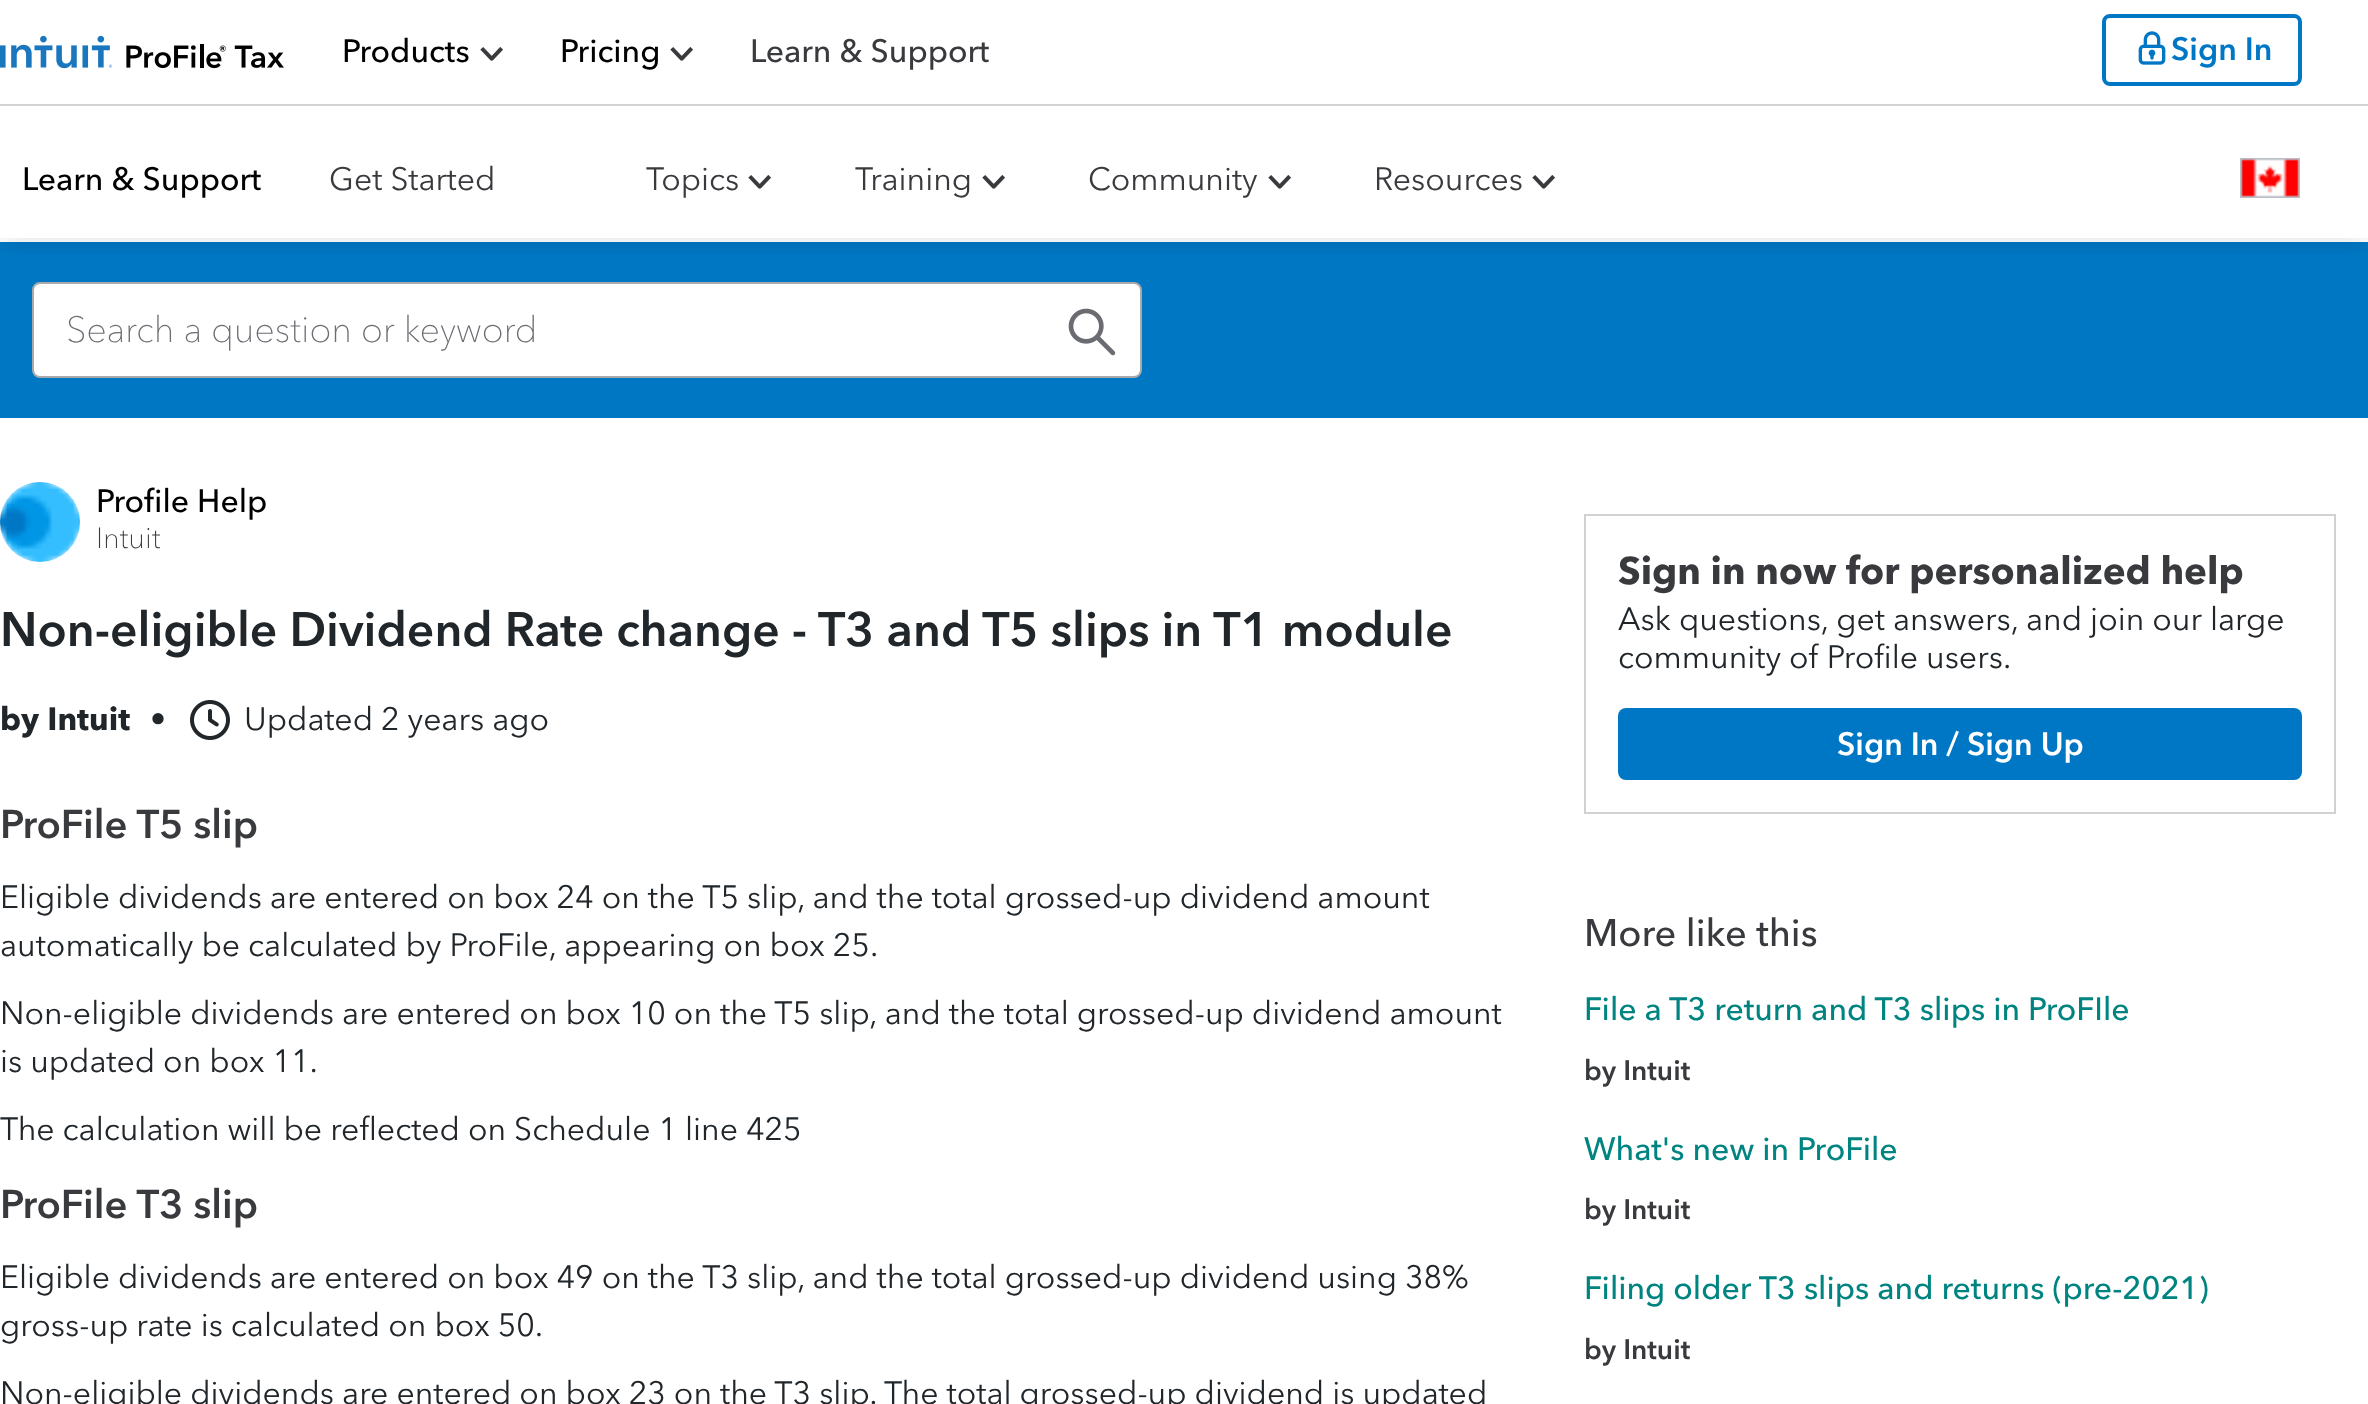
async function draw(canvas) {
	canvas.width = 2368;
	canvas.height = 1404;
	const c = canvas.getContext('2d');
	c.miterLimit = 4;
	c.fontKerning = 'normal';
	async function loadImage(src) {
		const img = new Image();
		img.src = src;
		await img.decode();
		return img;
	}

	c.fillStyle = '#fff';
	c.fillRect(0, 0, 2368, 1404);
	c.fillStyle = '#0077c3';
	c.fillRect(0, 242, 2368, 176);
	c.fillStyle = '#fff';
	c.beginPath();
	c.roundRect(33, 283, 1108, 94, 7);
	c.fill();
	c.strokeStyle = '#aaa';
	c.lineWidth = 2;
	c.stroke();
	c.save();
	c.beginPath();
	c.rect(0, 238, 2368, 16);
	c.clip();
	c.fillStyle = '#00000014';
	c.filter = 'blur(12px)';
	c.beginPath();
	c.rect(0, 8, 2368, 238);
	c.fill();
	c.filter = 'none';
	c.restore();
	c.fillStyle = '#d3d3d3';
	c.fillRect(0, 104, 2368, 2);
	c.drawImage(await loadImage('img1.png'), 0, 35, 284, 34);
	c.font = '500 32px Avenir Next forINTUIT';
	c.fillStyle = '#000';
	c.fillText('Products', 342, 62);
	c.drawImage(await loadImage('img2.png'), 480, 47, 23, 14);
	c.fillText('Pricing', 560, 62);
	c.drawImage(await loadImage('img2.png'), 670, 47, 23, 14);
	c.fillStyle = '#393a3d';
	c.fillText('Learn & Support', 750, 62);
	c.beginPath();
	c.roundRect(2104, 16, 196, 68, 6);
	c.strokeStyle = '#0077c5';
	c.lineWidth = 4;
	c.stroke();
	c.drawImage(await loadImage('img3.png'), 2138, 31, 28, 34);
	c.font = '600 32px Avenir Next forINTUIT';
	c.fillStyle = '#0077c5';
	c.fillText('Sign In', 2171, 60);
	c.font = '500 32px Avenir Next forINTUIT';
	c.fillStyle = '#000';
	c.fillText('Learn & Support', 22, 190);
	c.font = '32px Avenir Next forINTUIT';
	c.fillStyle = '#393a3d';
	c.fillText('Get Started', 329, 190);
	c.fillText('Topics', 646, 190);
	c.drawImage(await loadImage('img2.png'), 748, 175, 23, 14);
	c.fillText('Training', 855, 190);
	c.drawImage(await loadImage('img2.png'), 982, 175, 23, 14);
	c.fillText('Community', 1088, 190);
	c.drawImage(await loadImage('img2.png'), 1268, 175, 23, 14);
	c.fillText('Resources', 1374, 190);
	c.drawImage(await loadImage('img2.png'), 1532, 175, 23, 14);
	c.drawImage(await loadImage('img4.png'), 2240, 158, 60, 40);
	c.font = '100 36px Avenir Next forINTUIT';
	c.fillStyle = '#6c6d73';
	c.fillText('Search a question or keyword', 66, 342);
	c.drawImage(await loadImage('img5.png'), 1068, 308, 48, 48);
	c.drawImage(await loadImage('img6.png'), 0, 482, 80, 80);
	c.font = '500 32px Avenir Next forINTUIT';
	c.fillStyle = '#000';
	c.fillText('Profile Help', 96, 512);
	c.font = '100 29px Avenir Next forINTUIT';
	c.fillStyle = '#393a3d';
	c.fillText('Intuit', 96, 548);
	c.font = '600 48px Avenir Next forINTUIT';
	c.fillStyle = '#21262a';
	c.fillText('Non-eligible Dividend Rate change - T3 and T5 slips in T1 module', 0, 646);
	c.font = 'bold 32px Avenir Next forINTUIT';
	c.fillText('by Intuit', 0, 730);
	c.font = '32px Avenir Next forINTUIT';
	c.fillText('•', 150, 730);
	c.drawImage(await loadImage('img7.png'), 190, 700, 40, 40);
	c.fillText('Updated 2 years ago', 244, 730);
	c.font = '600 40px Avenir Next forINTUIT';
	c.fillStyle = '#393a3d';
	c.fillText('ProFile T5 slip', 0, 838);
	c.font = '32px Avenir Next forINTUIT';
	c.fillStyle = '#21262a';
	for (const [text, x, y] of [
		['Eligible dividends are entered on box 24 on the T5 slip, and the total grossed-up dividend amount', 0, 908],
		['automatically be calculated by ProFile, appearing on box 25.', 0, 956],
		['Non-eligible dividends are entered on box 10 on the T5 slip, and the total grossed-up dividend amount', 0, 1024],
		['is updated on box 11.', 0, 1072],
		['The calculation will be reflected on Schedule 1 line 425', 0, 1140],
	]) {
		c.fillText(text, x, y);
	}
	c.font = '600 40px Avenir Next forINTUIT';
	c.fillStyle = '#393a3d';
	c.fillText('ProFile T3 slip', 0, 1218);
	c.font = '32px Avenir Next forINTUIT';
	c.fillStyle = '#21262a';
	for (const [text, x, y] of [
		['Eligible dividends are entered on box 49 on the T3 slip, and the total grossed-up dividend using 38%', 0, 1288],
		['gross-up rate is calculated on box 50.', 0, 1336],
		['Non-eligible dividends are entered on box 23 on the T3 slip. The total grossed-up dividend is updated', 0, 1404],
	]) {
		c.fillText(text, x, y);
	}
	c.strokeStyle = '#d1d1d1';
	c.lineWidth = 2;
	c.strokeRect(1585, 515, 750, 298);
	c.font = 'bold 38.4px Avenir Next forINTUIT';
	c.fillStyle = '#393a3d';
	c.fillText('Sign in now for personalized help', 1618, 584);
	c.font = '32px Avenir Next forINTUIT';
	c.fillStyle = '#21262a';
	c.fillText('Ask questions, get answers, and join our large', 1618, 630);
	c.fillText('community of Profile users.', 1618, 668);
	c.fillStyle = '#0077c5';
	c.beginPath();
	c.roundRect(1618, 708, 684, 72, 8);
	c.fill();
	c.font = '600 32px Avenir Next forINTUIT';
	c.fillStyle = '#fff';
	c.fillText('Sign In / Sign Up', 1837, 755);
	c.font = '500 38px Avenir Next forINTUIT';
	c.fillStyle = '#393a3d';
	c.fillText('More like this', 1584, 946);
	c.font = '500 32px Avenir Next forINTUIT';
	c.fillStyle = '#008481';
	c.fillText('File a T3 return and T3 slips in ProFIle', 1584, 1020);
	c.font = '600 28px Avenir Next forINTUIT';
	c.fillStyle = '#393a3d';
	c.fillText('by Intuit', 1584, 1080);
	c.font = '500 32px Avenir Next forINTUIT';
	c.fillStyle = '#008481';
	c.fillText('What\'s new in ProFile', 1584, 1160);
	c.font = '600 28px Avenir Next forINTUIT';
	c.fillStyle = '#393a3d';
	c.fillText('by Intuit', 1584, 1219);
	c.font = '500 32px Avenir Next forINTUIT';
	c.fillStyle = '#008481';
	c.fillText('Filing older T3 slips and returns (pre-2021)', 1584, 1299);
	c.font = '600 28px Avenir Next forINTUIT';
	c.fillStyle = '#393a3d';
	c.fillText('by Intuit', 1584, 1359);
}

draw(document.querySelector('canvas'));
